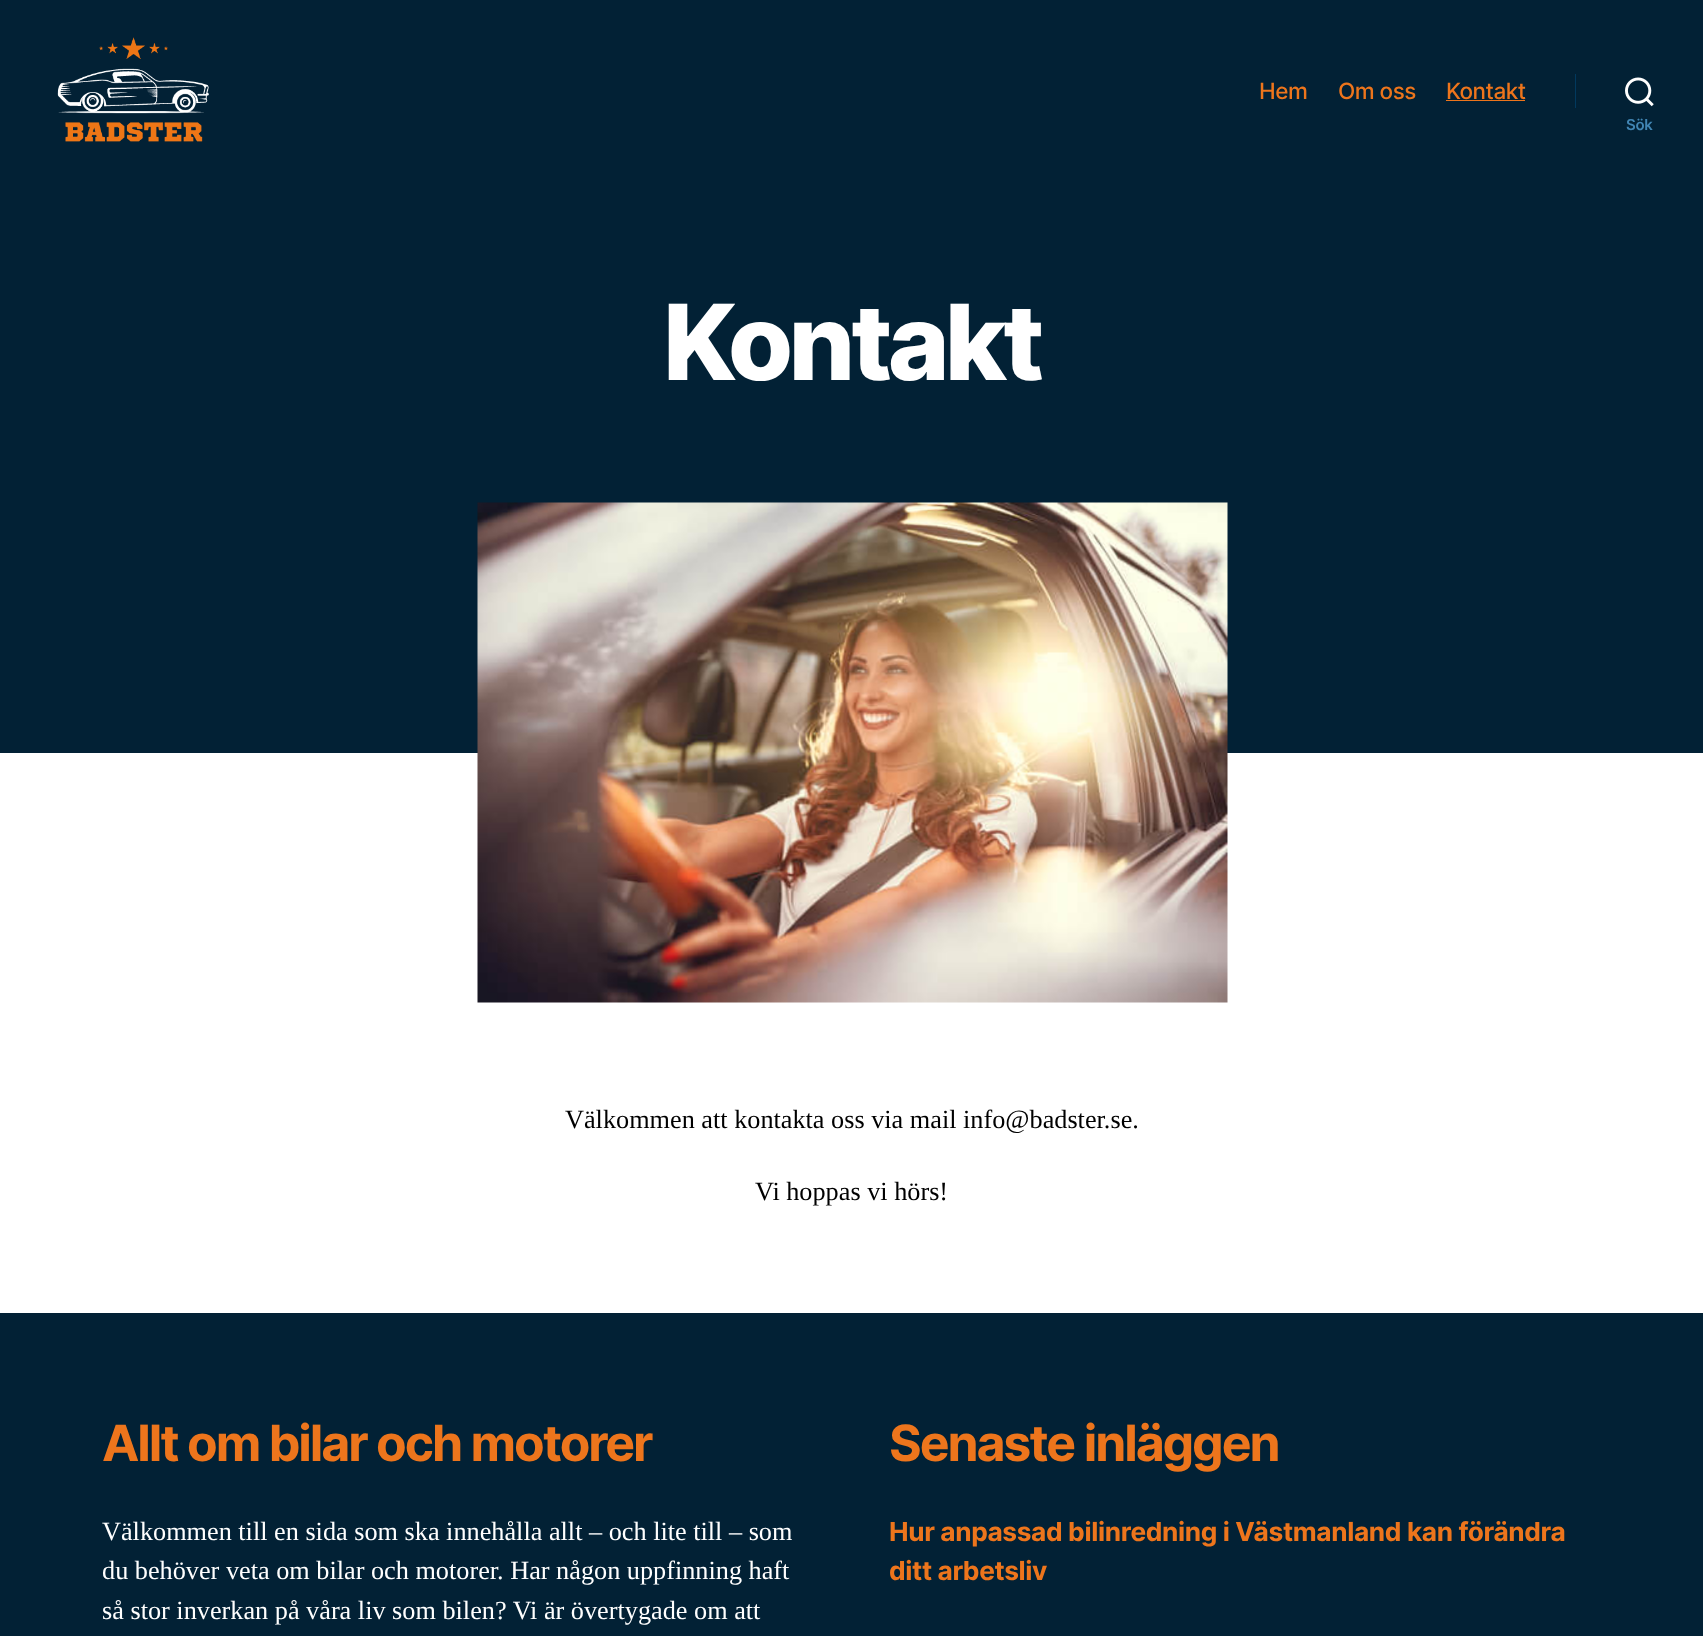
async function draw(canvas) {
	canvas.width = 1703;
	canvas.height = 1636;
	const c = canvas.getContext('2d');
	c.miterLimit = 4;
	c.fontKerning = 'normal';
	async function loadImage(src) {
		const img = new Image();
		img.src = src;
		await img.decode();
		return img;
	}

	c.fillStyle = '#fff';
	c.fillRect(0, 0, 1703, 1636);
	c.fillStyle = '#022135';
	c.fillRect(0, 0, 1703, 753);
	c.drawImage(await loadImage('img1.png'), 57, 37, 152, 105);
	c.letterSpacing = '-0.5px';
	c.font = '500 22.5px Inter';
	c.fillStyle = '#ed751c';
	for (const [text, x, y] of [
		['Hem', 1259, 99],
		['Om oss', 1338, 99],
		['Kontakt', 1446, 99],
	]) {
		c.fillText(text, x, y);
	}
	c.fillRect(1446, 100, 79, 1);
	c.fillStyle = '#01395e';
	c.fillRect(1575, 74, 1, 34);
	c.drawImage(await loadImage('img2.png'), 1625, 77, 29, 30);
	c.letterSpacing = '-0.35px';
	c.font = '600 15px Inter';
	c.fillStyle = '#4185b3';
	c.fillText('Sök', 1626, 130);
	c.letterSpacing = '-4.5px';
	c.font = '800 105px Inter';
	c.fillStyle = '#fff';
	c.fillText('Kontakt', 663, 380);
	c.drawImage(await loadImage('img3.png'), 477, 502, 751, 501);
	c.letterSpacing = '0px';
	c.font = '26.25px Liberation Serif';
	c.fillStyle = '#000';
	c.fillText('Välkommen att kontakta oss via mail info@badster.se.', 565, 1128);
	c.fillText('Vi hoppas vi hörs!', 755, 1200);
	c.fillStyle = '#022135';
	c.fillRect(0, 1313, 1703, 323);
	c.letterSpacing = '-2.1px';
	c.font = 'bold 50px Inter';
	c.fillStyle = '#ed751c';
	c.fillText('Allt om bilar och motorer', 102, 1461);
	c.letterSpacing = '0px';
	c.font = '26.25px Liberation Serif';
	c.fillStyle = '#fff';
	for (const [text, x, y] of [
		['Välkommen till en sida som ska innehålla allt – och lite till – som', 102, 1540],
		['du behöver veta om bilar och motorer. Har någon uppfinning haft', 102, 1579],
		['så stor inverkan på våra liv som bilen? Vi är övertygade om att', 102, 1619],
	]) {
		c.fillText(text, x, y);
	}
	c.letterSpacing = '-2.1px';
	c.font = 'bold 50px Inter';
	c.fillStyle = '#ed751c';
	c.fillText('Senaste inläggen', 889, 1461);
	c.letterSpacing = '-0.35px';
	c.font = 'bold 26.25px Inter';
	c.fillText('Hur anpassad bilinredning i Västmanland kan förändra', 889, 1541);
	c.fillText('ditt arbetsliv', 889, 1580);
}

draw(document.querySelector('canvas'));
